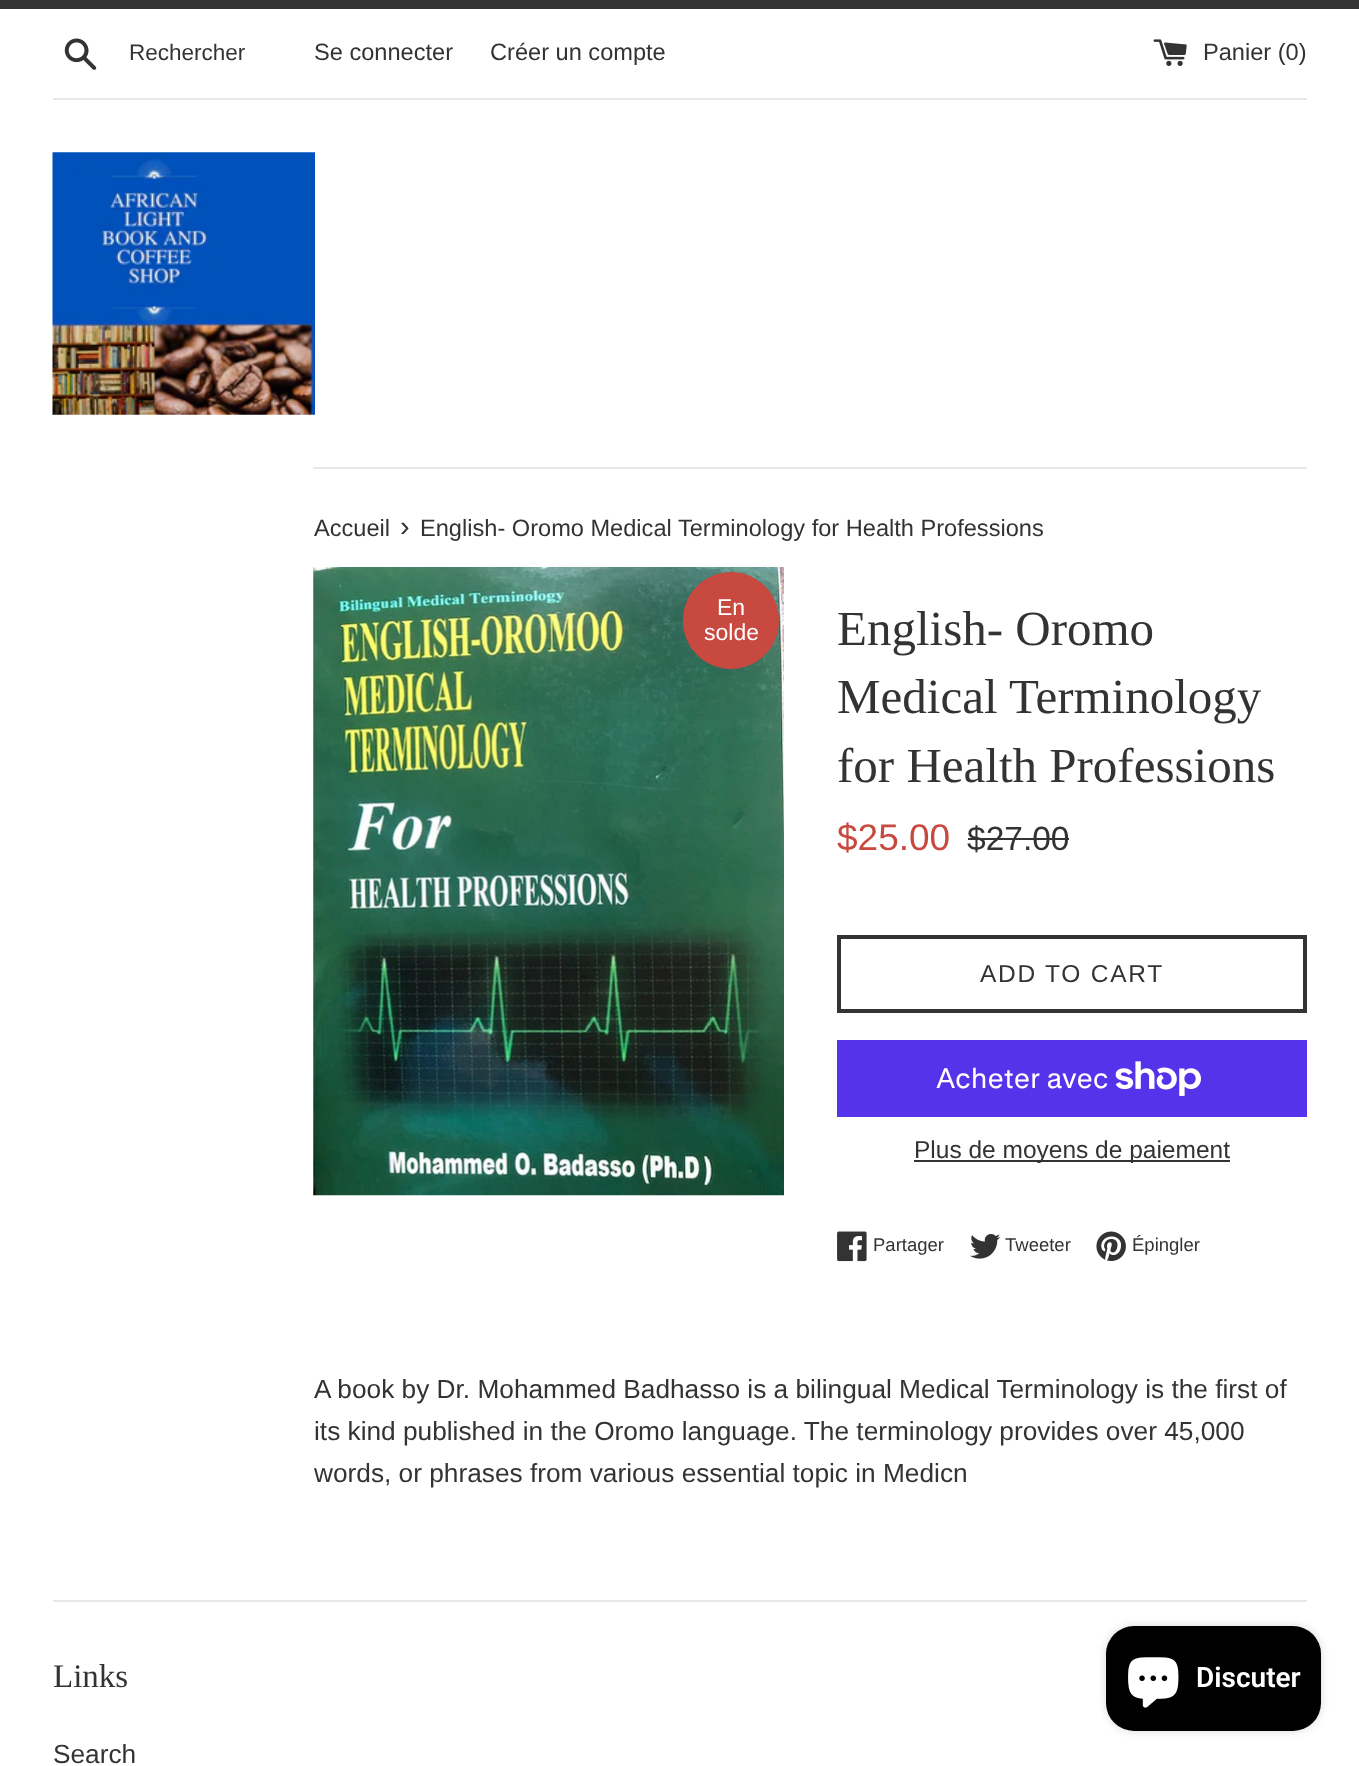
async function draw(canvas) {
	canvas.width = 1359;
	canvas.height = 1766;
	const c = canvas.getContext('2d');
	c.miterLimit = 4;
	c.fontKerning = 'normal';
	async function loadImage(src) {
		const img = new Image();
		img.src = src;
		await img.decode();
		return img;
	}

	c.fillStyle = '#fff';
	c.fillRect(0, 0, 1359, 1766);
	c.fillStyle = '#333';
	c.fillRect(0, 0, 1359, 9);
	c.drawImage(await loadImage('img1.png'), 64, 38, 33, 32);
	c.font = '22.5px Liberation Sans';
	c.fillText('Rechercher', 129, 60);
	c.font = '23.6px Liberation Sans';
	c.fillText('Se connecter', 314, 60);
	c.fillText('Créer un compte', 490, 60);
	c.drawImage(await loadImage('img2.png'), 1153, 39, 34, 27);
	c.fillText('Panier (0)', 1203, 60);
	c.fillStyle = '#e8e8e8';
	c.fillRect(53, 98, 1254, 2);
	c.drawImage(await loadImage('img3.png'), 52, 152, 263, 263);
	c.fillRect(313, 467, 994, 2);
	c.fillStyle = '#333';
	c.fillText('Accueil', 314, 536);
	c.font = '29px Liberation Sans';
	c.fillText('›', 400, 536);
	c.font = '23.6px Liberation Sans';
	c.fillText('English- Oromo Medical Terminology for Health Professions', 420, 536);
	c.drawImage(await loadImage('img4.png'), 313, 567, 471, 629);
	c.fillStyle = '#c8493f';
	c.beginPath();
	c.roundRect(683, 572, 96, 97, 48);
	c.fill();
	c.font = '23px Liberation Sans';
	c.fillStyle = '#fff';
	c.fillText('En', 717, 615);
	c.fillText('solde', 704, 640);
	c.font = '49px Liberation Serif';
	c.fillStyle = '#333';
	for (const [text, x, y] of [
		['English- Oromo', 837, 645],
		['Medical Terminology', 837, 713],
		['for Health Professions', 837, 782],
	]) {
		c.fillText(text, x, y);
	}
	c.font = '37px Liberation Sans';
	c.fillStyle = '#c8493f';
	c.fillText('$25.00', 837, 850);
	c.font = '33.5px Liberation Sans';
	c.fillStyle = '#333';
	c.fillText('$27.00', 967, 850);
	c.fillRect(968, 838, 101, 2);
	c.strokeStyle = '#333';
	c.lineWidth = 4;
	c.strokeRect(839, 937, 466, 74);
	c.letterSpacing = '1.75px';
	c.font = '24.5px Liberation Sans';
	c.fillText('ADD TO CART', 980, 982);
	c.fillStyle = '#5433eb';
	c.fillRect(837, 1040, 470, 77);
	c.letterSpacing = '0px';
	c.font = '28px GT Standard';
	c.fillStyle = '#fff';
	c.fillText('Acheter avec', 936, 1088);
	c.drawImage(await loadImage('img5.png'), 1115, 1061, 86, 35);
	c.fillStyle = '#333';
	c.fillRect(914, 1160, 316, 2);
	c.font = '24.5px Liberation Sans';
	c.fillText('Plus de moyens de paiement', 914, 1158);
	c.drawImage(await loadImage('img6.png'), 837, 1231, 30, 31);
	c.font = '18.5px Liberation Sans';
	c.fillText('Partager', 873, 1251);
	c.drawImage(await loadImage('img7.png'), 970, 1234, 31, 25);
	c.fillText('Tweeter', 1005, 1251);
	c.drawImage(await loadImage('img8.png'), 1096, 1231, 30, 30);
	c.fillText('Épingler', 1132, 1251);
	c.font = '26.25px Liberation Sans';
	for (const [text, x, y] of [
		['A book by Dr. Mohammed Badhasso is a bilingual Medical Terminology is the first of', 314, 1398],
		['its kind published in the Oromo language. The terminology provides over 45,000', 314, 1440],
		['words, or phrases from various essential topic in Medicn', 314, 1482],
	]) {
		c.fillText(text, x, y);
	}
	c.fillStyle = '#e8e8e8';
	c.fillRect(53, 1600, 1254, 2);
	c.font = '33px Liberation Serif';
	c.fillStyle = '#333';
	c.fillText('Links', 53, 1687);
	c.font = '26.25px Liberation Sans';
	c.fillText('Search', 53, 1763);
	c.fillStyle = '#00000026';
	c.filter = 'blur(4.5px)';
	c.beginPath();
	c.roundRect(1106, 1626, 215, 105, 28);
	c.fill();
	c.filter = 'none';
	c.fillStyle = '#000';
	c.beginPath();
	c.roundRect(1106, 1626, 215, 105, 28);
	c.fill();
	c.drawImage(await loadImage('img9.png'), 1128, 1657, 51, 51);
	c.font = '600 28px Roboto';
	c.fillStyle = '#fff';
	c.fillText('Discuter', 1196, 1687);
}

draw(document.querySelector('canvas'));
